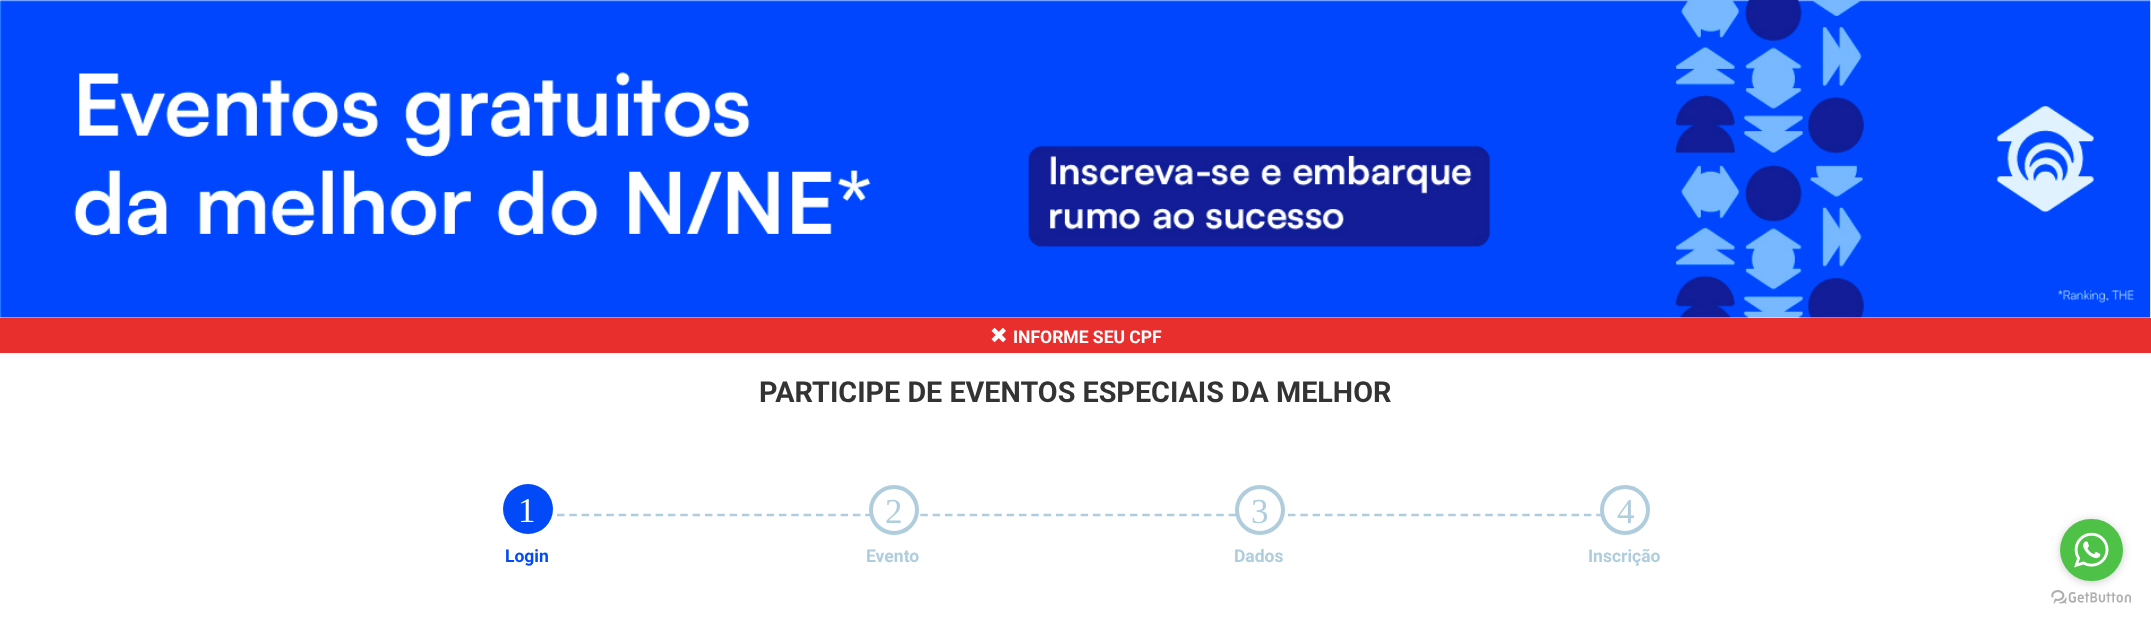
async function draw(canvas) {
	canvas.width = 2151;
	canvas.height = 623;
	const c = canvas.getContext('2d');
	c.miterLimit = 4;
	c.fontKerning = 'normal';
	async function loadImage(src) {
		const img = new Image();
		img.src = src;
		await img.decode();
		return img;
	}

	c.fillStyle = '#fff';
	c.fillRect(0, 0, 2151, 623);
	c.drawImage(await loadImage('img1.png'), 0, 0, 2151, 318);
	c.fillStyle = '#e92e2e';
	c.fillRect(0, 318, 2151, 35);
	c.drawImage(await loadImage('img2.png'), 991, 327, 15, 16);
	c.font = 'bold 17.5px Roboto';
	c.fillStyle = '#fff';
	c.fillText('INFORME SEU CPF', 1013, 343);
	c.font = 'bold 28.75px Roboto';
	c.fillStyle = '#333';
	c.fillText('PARTICIPE DE EVENTOS ESPECIAIS DA MELHOR', 759, 402);
	c.beginPath();
	c.moveTo(520, 515);
	c.lineTo(885, 515);
	c.strokeStyle = '#afcddc';
	c.lineWidth = 2.5;
	c.setLineDash([7.5, 4.83]);
	c.stroke();
	c.fillStyle = '#024af7';
	c.beginPath();
	c.arc(528, 509, 25, 0, 2 * Math.PI);
	c.fill();
	c.font = '35px Liberation Serif';
	c.fillStyle = '#fff';
	c.fillText('1', 518, 522);
	c.font = 'bold 17.5px Roboto';
	c.fillStyle = '#024af7';
	c.fillText('Login', 505, 562);
	c.beginPath();
	c.moveTo(871, 515);
	c.lineTo(1236, 515);
	c.stroke();
	c.fillStyle = '#fff';
	c.beginPath();
	c.arc(894, 510, 23, 0, 2 * Math.PI);
	c.fill();
	c.lineWidth = 4;
	c.setLineDash([]);
	c.stroke();
	c.font = '35px Liberation Serif';
	c.fillStyle = '#afcddc';
	c.fillText('2', 885, 523);
	c.font = 'bold 17.5px Roboto';
	c.fillText('Evento', 866, 562);
	c.beginPath();
	c.moveTo(1251, 515);
	c.lineTo(1616, 515);
	c.lineWidth = 2.5;
	c.setLineDash([7.5, 4.83]);
	c.stroke();
	c.fillStyle = '#fff';
	c.beginPath();
	c.arc(1260, 510, 23, 0, 2 * Math.PI);
	c.fill();
	c.lineWidth = 4;
	c.setLineDash([]);
	c.stroke();
	c.font = '35px Liberation Serif';
	c.fillStyle = '#afcddc';
	c.fillText('3', 1251, 523);
	c.font = 'bold 17.5px Roboto';
	c.fillText('Dados', 1234, 562);
	c.fillStyle = '#fff';
	c.beginPath();
	c.arc(1625, 510, 23, 0, 2 * Math.PI);
	c.fill();
	c.stroke();
	c.font = '35px Liberation Serif';
	c.fillStyle = '#afcddc';
	c.fillText('4', 1617, 523);
	c.font = 'bold 17.5px Roboto';
	c.fillText('Inscrição', 1588, 562);
	c.drawImage(await loadImage('img4.png'), 2051, 590, 80, 14);
	c.fillStyle = '#88888866';
	c.filter = 'blur(4.5px)';
	c.beginPath();
	c.roundRect(2060, 520, 63, 63, 31.5);
	c.fill();
	c.filter = 'none';
	c.fillStyle = '#4dc247';
	c.beginPath();
	c.roundRect(2060, 519, 63, 62, 31);
	c.fill();
	c.drawImage(await loadImage('img3.png'), 2074, 532, 35, 36);
}

draw(document.querySelector('canvas'));
